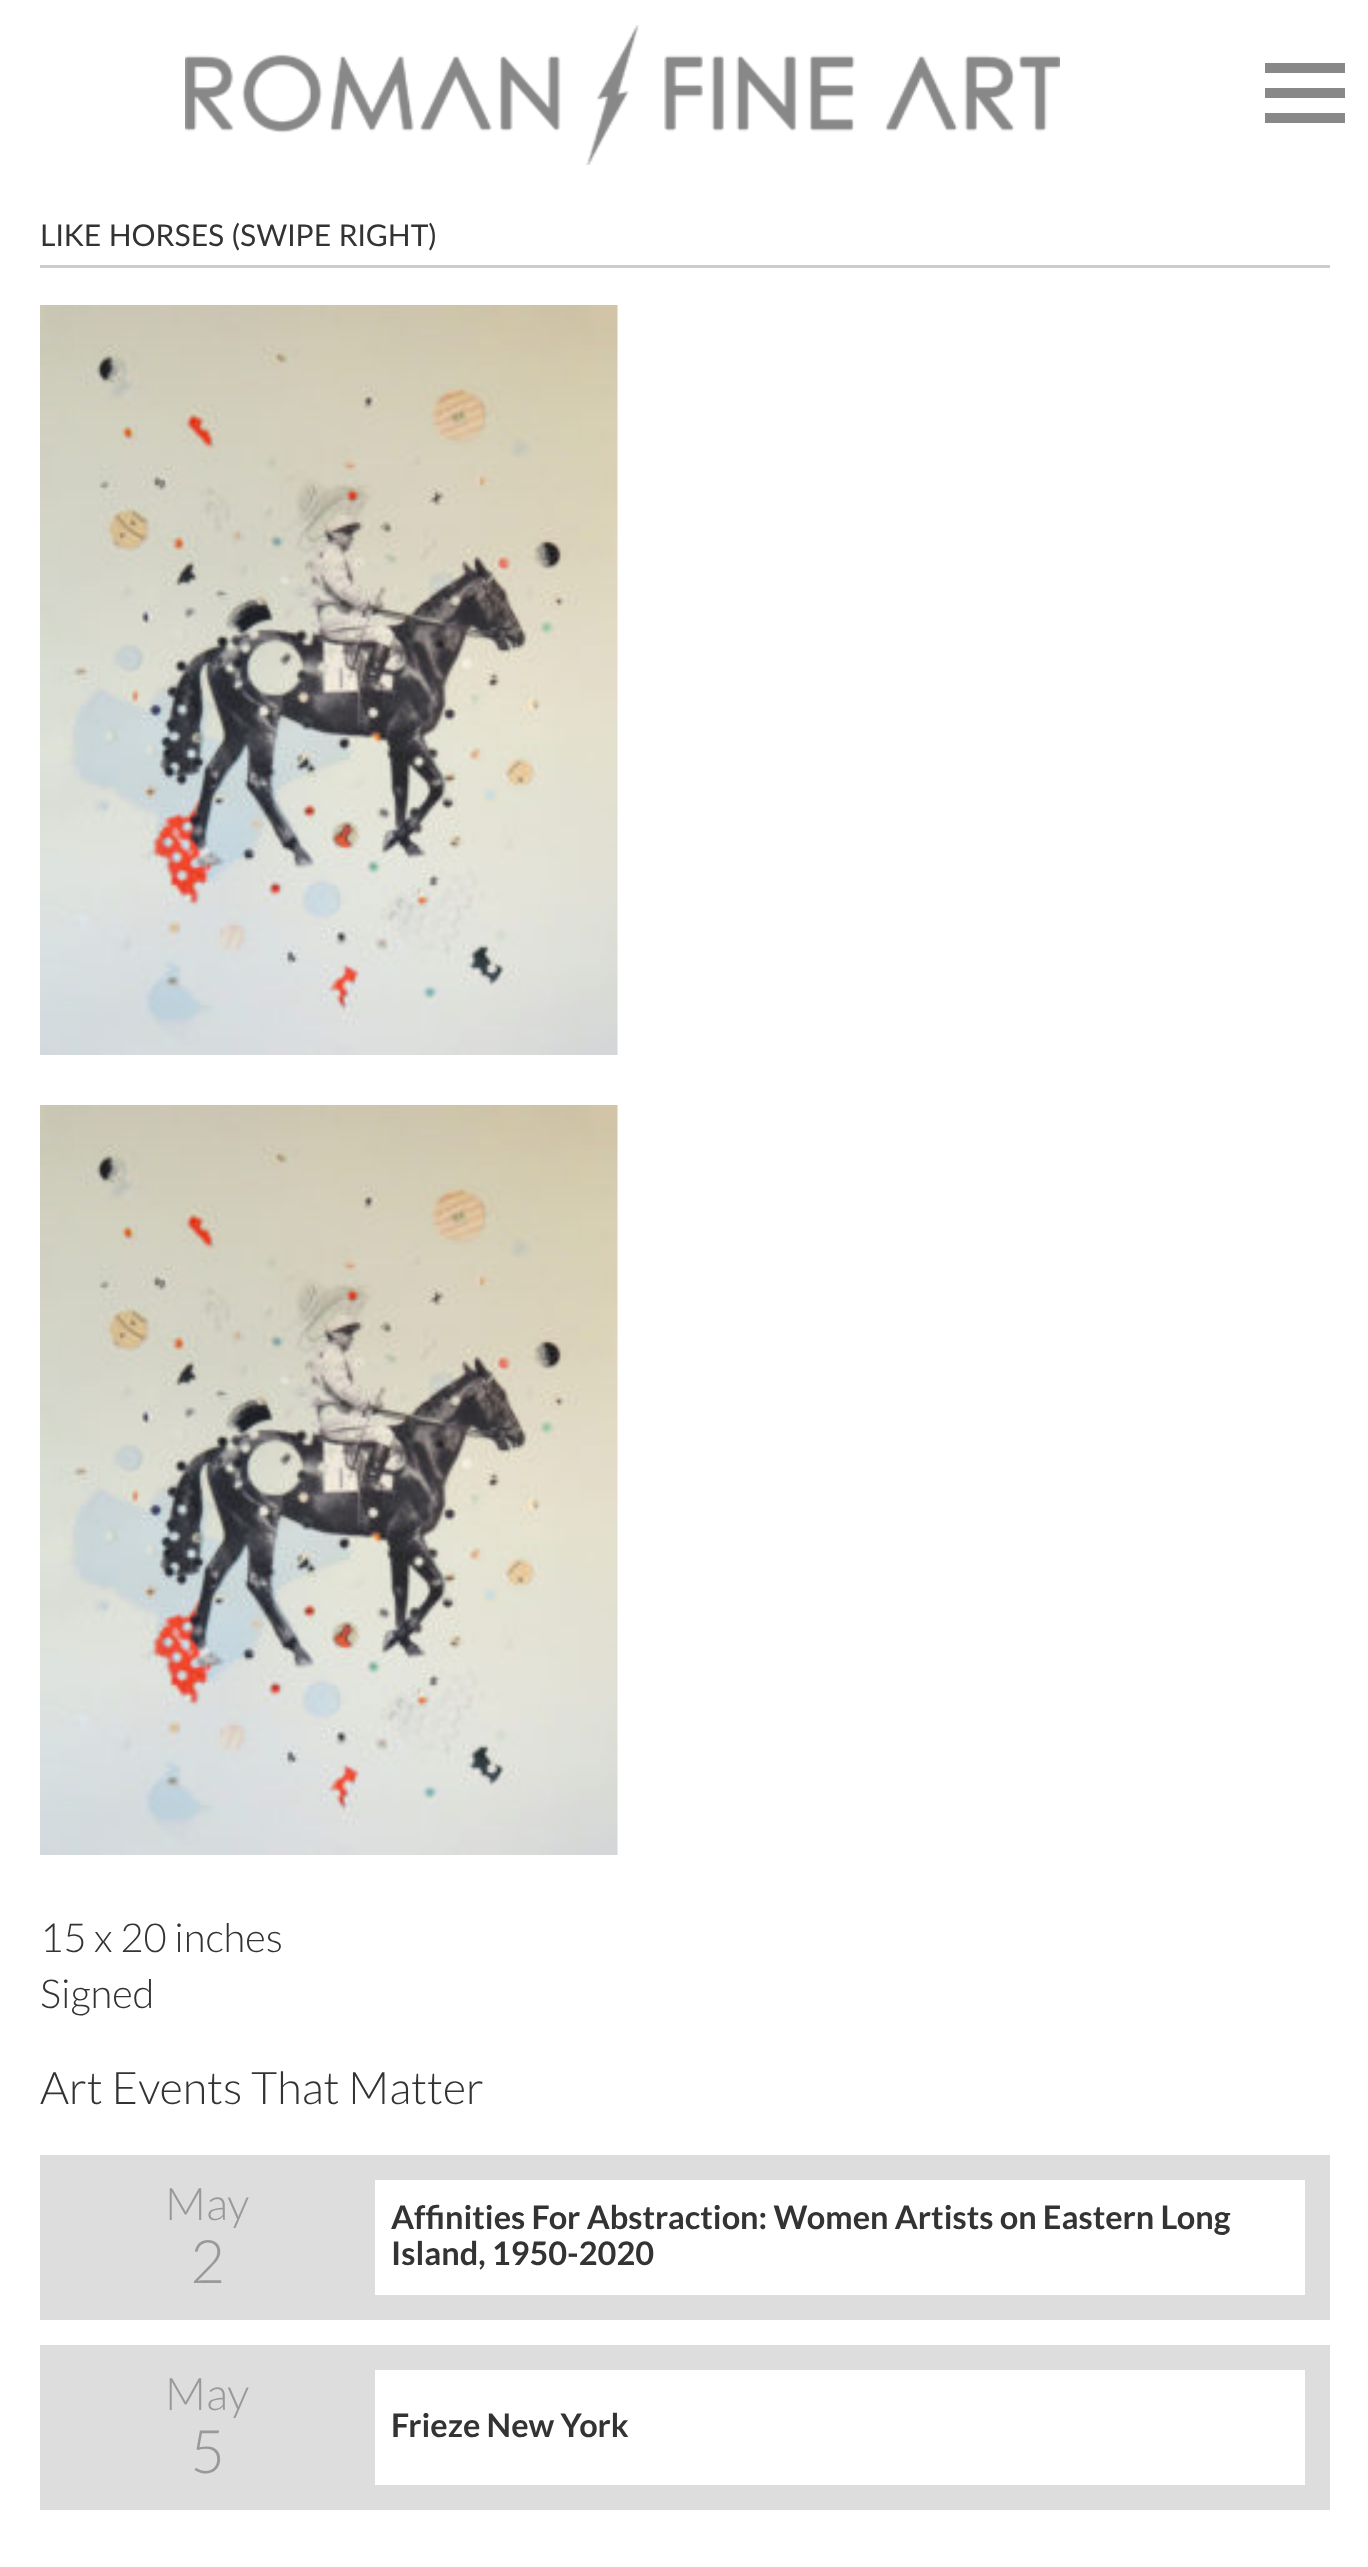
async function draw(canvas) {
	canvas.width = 1368;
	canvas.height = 2567;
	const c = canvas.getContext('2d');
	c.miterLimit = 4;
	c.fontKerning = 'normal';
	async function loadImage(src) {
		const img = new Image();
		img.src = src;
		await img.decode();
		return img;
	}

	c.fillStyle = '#fff';
	c.fillRect(0, 0, 1368, 2567);
	c.drawImage(await loadImage('img1.png'), 185, 25, 875, 140);
	for (const [x, y, w, h, color] of [
		[1265, 63, 80, 10, '#888'],
		[1265, 88, 80, 10, '#888'],
		[1265, 113, 80, 10, '#888'],
		[40, 265, 1290, 3, '#ccc'],
	]) {
		c.fillStyle = color;
		c.fillRect(x, y, w, h);
	}
	c.font = '30px Lato';
	c.fillStyle = '#333';
	c.fillText('LIKE HORSES (SWIPE RIGHT)', 40, 246);
	c.drawImage(await loadImage('img2.png'), 40, 305, 578, 750);
	c.drawImage(await loadImage('img3.png'), 40, 1105, 578, 750);
	c.font = '300 40px Lato';
	c.fillText('15 x 20 inches', 40, 1952);
	c.fillText('Signed', 40, 2008);
	c.font = '300 45px Lato';
	c.fillText('Art Events That Matter', 40, 2104);
	c.strokeStyle = '#ddd';
	c.lineWidth = 25;
	c.strokeRect(52.5, 2167.5, 1265, 140);
	c.fillStyle = '#ddd';
	c.fillRect(65, 2180, 310, 115);
	c.fillStyle = '#999';
	c.fillText('May', 165, 2220);
	c.font = '300 60px Lato';
	c.fillText('2', 190, 2283);
	c.font = 'bold 32.5px Lato';
	c.fillStyle = '#333';
	c.fillText('Affinities For Abstraction: Women Artists on Eastern Long', 391, 2229);
	c.fillText('Island, 1950-2020', 391, 2265);
	c.strokeRect(52.5, 2357.5, 1265, 140);
	c.fillStyle = '#ddd';
	c.fillRect(65, 2370, 310, 115);
	c.font = '300 45px Lato';
	c.fillStyle = '#999';
	c.fillText('May', 165, 2410);
	c.font = '300 60px Lato';
	c.fillText('5', 190, 2473);
	c.font = 'bold 32.5px Lato';
	c.fillStyle = '#333';
	c.fillText('Frieze New York', 391, 2437);
}

draw(document.querySelector('canvas'));
